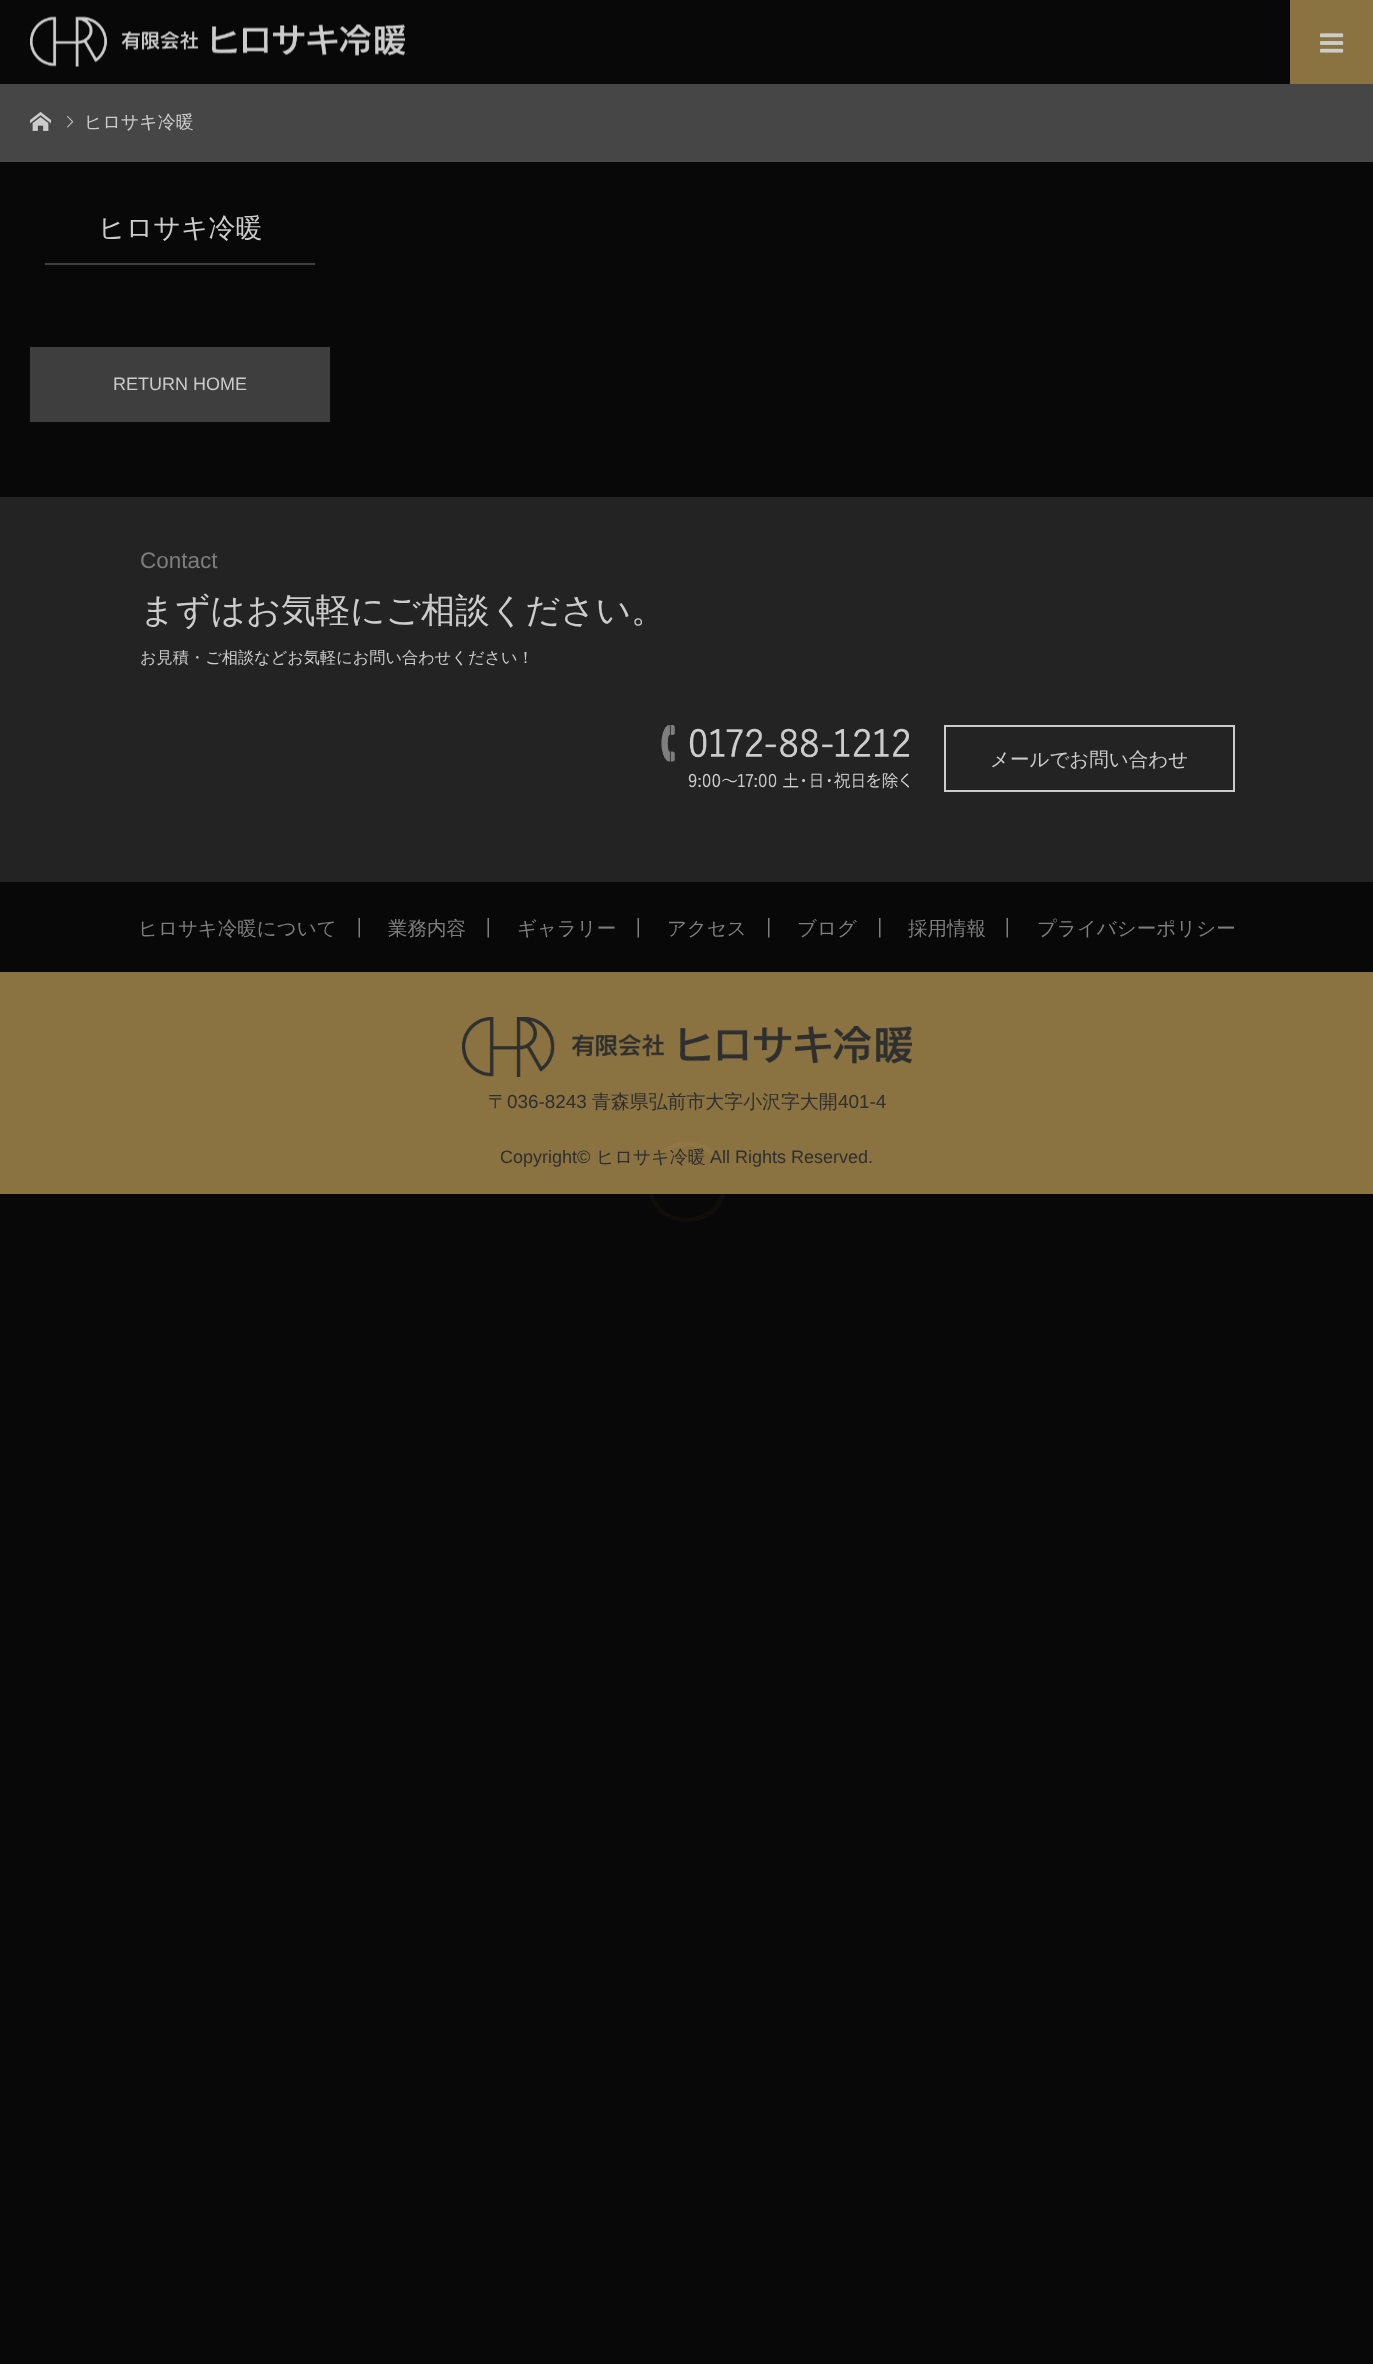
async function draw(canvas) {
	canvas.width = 1373;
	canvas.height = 2364;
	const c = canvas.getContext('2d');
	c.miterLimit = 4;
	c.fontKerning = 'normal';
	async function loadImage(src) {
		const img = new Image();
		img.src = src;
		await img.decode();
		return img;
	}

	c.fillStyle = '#080808';
	c.fillRect(0, 0, 1373, 2364);
	c.drawImage(await loadImage('img1.png'), 30, 16, 375, 51);
	c.fillStyle = '#8a7241';
	c.fillRect(1290, 0, 83, 84);
	c.drawImage(await loadImage('img2.png'), 1320, 33, 24, 20);
	c.fillStyle = '#464646';
	c.fillRect(0, 84, 1373, 78);
	c.drawImage(await loadImage('img3.png'), 30, 112, 21, 19);
	c.drawImage(await loadImage('img4.png'), 67, 116, 7, 12);
	c.font = '500 18px WenQuanYi Zen Hei';
	c.fillStyle = '#ccc';
	c.fillText('ヒロサキ冷暖', 84, 128);
	c.fillStyle = '#3e3e3e';
	c.fillRect(45, 263, 270, 2);
	c.font = '500 27px WenQuanYi Zen Hei';
	c.fillStyle = '#ccc';
	c.fillText('ヒロサキ冷暖', 98, 237);
	c.fillStyle = '#3e3e3e';
	c.fillRect(30, 347, 300, 75);
	c.font = '18px Liberation Sans';
	c.fillStyle = '#ccc';
	c.fillText('RETURN HOME', 113, 390);
	c.fillStyle = '#232323';
	c.fillRect(0, 497, 1373, 385);
	c.font = '22.5px Liberation Sans';
	c.fillStyle = '#7e7e7e';
	c.fillText('Contact', 140, 568);
	c.font = '500 34.5px WenQuanYi Zen Hei';
	c.fillStyle = '#ccc';
	c.fillText('まずはお気軽にご相談ください。', 140, 622);
	c.font = '500 16.2px WenQuanYi Zen Hei';
	c.fillText('お見積・ご相談などお気軽にお問い合わせください！', 140, 663);
	c.drawImage(await loadImage('img5.png'), 661, 725, 248, 64);
	c.strokeStyle = '#ccc';
	c.lineWidth = 2;
	c.strokeRect(945, 726, 289, 65);
	c.font = '500 19.5px WenQuanYi Zen Hei';
	c.fillText('メールでお問い合わせ', 990, 766);
	c.drawImage(await loadImage('img6.png'), 358, 918, 2, 20);
	c.fillStyle = '#7e7e7e';
	c.fillText('ヒロサキ冷暖について', 138, 935);
	c.drawImage(await loadImage('img6.png'), 487, 918, 2, 20);
	c.fillText('業務内容', 388, 935);
	c.drawImage(await loadImage('img6.png'), 637, 918, 2, 20);
	c.fillText('ギャラリー', 517, 935);
	c.drawImage(await loadImage('img7.png'), 768, 918, 2, 20);
	c.fillText('アクセス', 667, 935);
	c.drawImage(await loadImage('img7.png'), 879, 918, 2, 20);
	c.fillText('ブログ', 797, 935);
	c.drawImage(await loadImage('img6.png'), 1006, 918, 2, 20);
	c.fillText('採用情報', 908, 935);
	c.fillText('プライバシーポリシー', 1037, 935);
	c.fillStyle = '#8a7241';
	c.fillRect(0, 972, 1373, 222);
	c.drawImage(await loadImage('img8.png'), 462, 1017, 450, 60);
	c.font = '500 18.9px WenQuanYi Zen Hei';
	c.fillStyle = '#2f2f2f';
	c.fillText('〒', 488, 1108);
	c.font = '18.9px Liberation Sans';
	c.fillText('036-8243', 507, 1108);
	c.font = '500 18.9px WenQuanYi Zen Hei';
	c.fillText('青森県弘前市大字小沢字大開', 592, 1108);
	c.font = '18.9px Liberation Sans';
	c.fillText('401-4', 838, 1108);
	c.font = '18px Liberation Sans';
	c.fillText('Copyright©', 500, 1163);
	c.font = '500 18px WenQuanYi Zen Hei';
	c.fillText('ヒロサキ冷暖', 596, 1163);
	c.font = '18px Liberation Sans';
	c.fillText('All Rights Reserved.', 710, 1163);
	c.beginPath();
	c.moveTo(660, 1155);
	c.bezierCurveTo(674.5, 1140, 699.5, 1140, 714, 1155);
	c.strokeStyle = '#a9894a3b';
	c.lineWidth = 4.5;
	c.stroke();
	c.beginPath();
	c.moveTo(714, 1155);
	c.bezierCurveTo(721, 1162, 725, 1172, 725, 1182);
	c.bezierCurveTo(725, 1228, 658.5, 1234.5, 649.5, 1189.5);
	c.bezierCurveTo(647, 1177, 651, 1164, 660, 1155);
	c.strokeStyle = '#a9894a0d';
	c.stroke();
}

draw(document.querySelector('canvas'));
